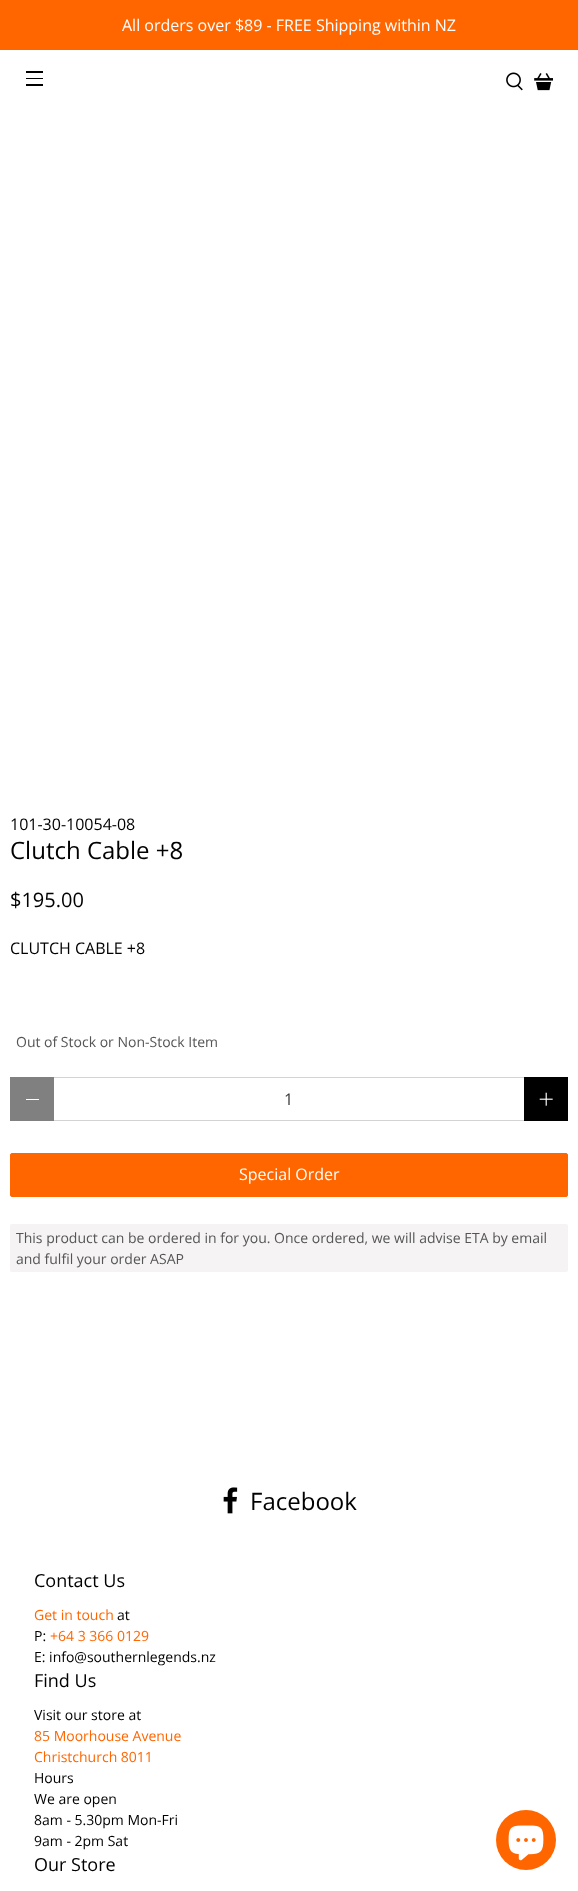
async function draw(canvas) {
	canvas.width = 578;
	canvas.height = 1891;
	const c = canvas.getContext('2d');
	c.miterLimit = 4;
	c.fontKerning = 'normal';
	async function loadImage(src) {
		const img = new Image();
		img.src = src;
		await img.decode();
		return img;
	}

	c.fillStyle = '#fff';
	c.fillRect(0, 0, 578, 1891);
	c.fillStyle = '#f60';
	c.fillRect(0, 0, 578, 50);
	c.font = '16px Open Sans';
	c.fillStyle = '#fff';
	c.fillText('All orders over $89 - FREE Shipping within NZ', 122, 31);
	for (const [x, y, w, h, color] of [
		[26, 71, 17, 2, '#000'],
		[26, 78, 17, 1, '#000'],
		[26, 84, 17, 2, '#000'],
	]) {
		c.fillStyle = color;
		c.fillRect(x, y, w, h);
	}
	c.drawImage(await loadImage('img1.png'), 506, 72, 17, 19);
	c.drawImage(await loadImage('img2.png'), 534, 73, 19, 18);
	c.fillText('101-30-10054-08', 10, 830);
	c.font = '24px Open Sans';
	c.fillText('Clutch Cable +8', 10, 859);
	c.font = '20px Open Sans';
	c.fillText('$195.00', 10, 907);
	c.font = '16px Open Sans';
	c.fillText('CLUTCH CABLE +8', 10, 954);
	c.font = '14px Open Sans';
	c.fillStyle = '#555';
	c.fillText('Out of Stock or Non-Stock Item', 16, 1047);
	for (const [x, y, w, h, color] of [
		[10, 1077, 44, 44, '#808080'],
		[26, 1099, 13, 1, '#fff'],
		[54, 1077, 470, 1, '#d3d3d3'],
		[54, 1120, 470, 1, '#d3d3d3'],
	]) {
		c.fillStyle = color;
		c.fillRect(x, y, w, h);
	}
	c.font = '16px Open Sans';
	c.fillStyle = '#363636';
	c.fillText('1', 284, 1105);
	c.fillStyle = '#000';
	c.fillRect(524, 1077, 44, 44);
	c.drawImage(await loadImage('img3.png'), 539, 1092, 14, 14);
	c.fillStyle = '#f60';
	c.beginPath();
	c.roundRect(10.5, 1153.5, 557, 43, 1.5);
	c.fill();
	c.strokeStyle = '#f60';
	c.stroke();
	c.fillStyle = '#fff';
	c.fillText('Special Order', 239, 1180);
	c.fillStyle = '#f5f3f3';
	c.beginPath();
	c.roundRect(10, 1224, 558, 48, 2);
	c.fill();
	c.font = '14px Open Sans';
	c.fillStyle = '#555';
	c.fillText('This product can be ordered in for you. Once ordered, we will advise ETA by email', 16, 1243);
	c.fillText('and fulfil your order ASAP', 16, 1264);
	c.drawImage(await loadImage('img4.png'), 223, 1487, 15, 27);
	c.font = '24px Open Sans';
	c.fillStyle = '#000';
	c.fillText('Facebook', 250, 1510);
	c.font = '18px Open Sans';
	c.fillText('Contact Us', 34, 1587);
	c.font = '14px Open Sans';
	c.fillStyle = '#f60';
	c.fillText('Get in touch', 34, 1620);
	c.fillStyle = '#000';
	c.fillText('at', 117, 1620);
	c.fillText('P:', 34, 1641);
	c.fillStyle = '#f60';
	c.fillText('+64 3 366 0129', 50, 1641);
	c.fillStyle = '#000';
	c.fillText('E: info@southernlegends.nz', 34, 1662);
	c.font = '18px Open Sans';
	c.fillText('Find Us', 34, 1687);
	c.font = '14px Open Sans';
	c.fillText('Visit our store at', 34, 1720);
	c.fillStyle = '#f60';
	c.fillText('85 Moorhouse Avenue', 34, 1741);
	c.fillText('Christchurch 8011', 34, 1762);
	c.fillStyle = '#000';
	for (const [text, x, y] of [
		['Hours', 34, 1783],
		['We are open', 34, 1804],
		['8am - 5.30pm Mon-Fri', 34, 1825],
		['9am - 2pm Sat', 34, 1846],
	]) {
		c.fillText(text, x, y);
	}
	c.font = '18px Open Sans';
	c.fillText('Our Store', 34, 1871);
	c.fillStyle = '#f60';
	c.beginPath();
	c.arc(526, 1840, 30, 0, 2 * Math.PI);
	c.fill();
	c.drawImage(await loadImage('img5.png'), 508, 1825, 36, 36);
}

draw(document.querySelector('canvas'));
